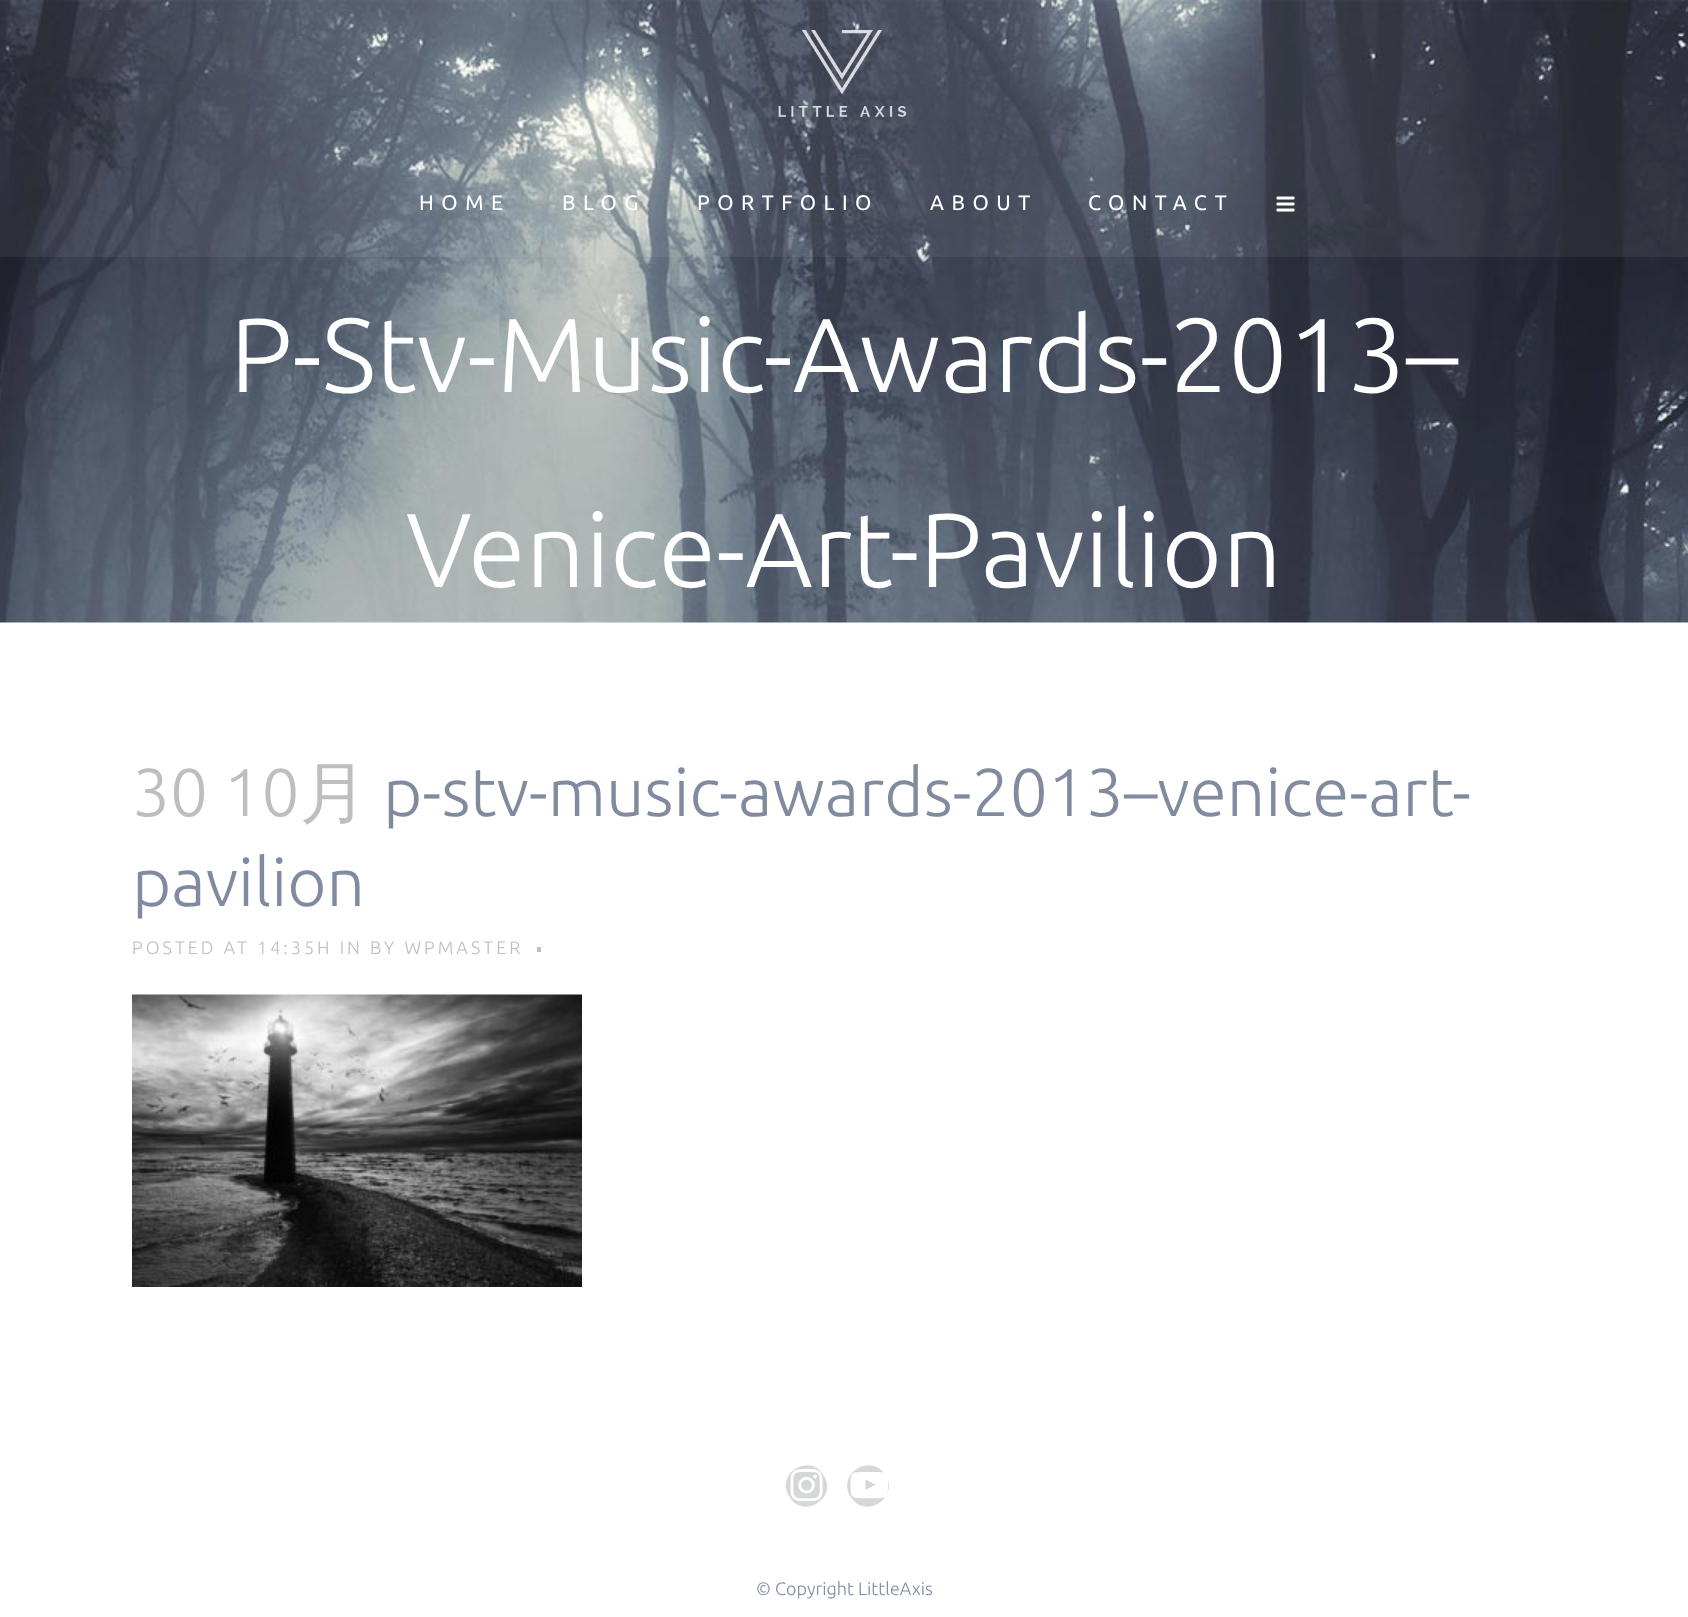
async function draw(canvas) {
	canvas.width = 1688;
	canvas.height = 1617;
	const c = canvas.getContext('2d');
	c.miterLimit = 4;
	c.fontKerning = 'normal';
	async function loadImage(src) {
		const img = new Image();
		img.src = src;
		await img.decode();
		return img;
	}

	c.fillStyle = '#fff';
	c.fillRect(0, 0, 1688, 1617);
	c.drawImage(await loadImage('img3.png'), 0, 0, 1688, 623);
	c.fillStyle = '#ffffff0f';
	c.fillRect(0, 0, 1688, 257);
	c.drawImage(await loadImage('img1.png'), 778, 30, 129, 87);
	c.letterSpacing = '7.5px';
	c.font = '21px Ubuntu';
	c.fillStyle = '#fff';
	for (const [text, x, y] of [
		['HOME', 419, 210],
		['BLOG', 562, 210],
		['PORTFOLIO', 697, 210],
		['ABOUT', 930, 210],
		['CONTACT', 1088, 210],
	]) {
		c.fillText(text, x, y);
	}
	c.drawImage(await loadImage('img2.png'), 1276, 196, 19, 16);
	c.letterSpacing = '0px';
	c.font = '300 105px Ubuntu';
	c.fillText('P-Stv-Music-Awards-2013–', 230, 392);
	c.fillText('Venice-Art-Pavilion', 406, 587);
	c.font = '300 67.5px Ubuntu';
	c.fillStyle = '#bebebe';
	c.fillText('30 10', 132, 816);
	c.font = '500 67.5px WenQuanYi Zen Hei';
	c.fillText('月', 300, 816);
	c.font = '300 67.5px Ubuntu';
	c.fillStyle = '#808ba0';
	c.fillText('p-stv-music-awards-2013–venice-art-', 383, 816);
	c.fillText('pavilion', 132, 906);
	c.letterSpacing = '3px';
	c.font = '300 18px Ubuntu';
	c.fillStyle = '#bebebe';
	c.fillText('POSTED AT 14:35H IN BY WPMASTER', 132, 954);
	c.fillRect(537, 947, 4, 5);
	c.drawImage(await loadImage('img4.png'), 132, 994, 450, 293);
	c.fillStyle = '#d6d7d9';
	c.beginPath();
	c.moveTo(824, 1476);
	c.bezierCurveTo(838, 1499, 802, 1520, 789, 1496);
	c.bezierCurveTo(775, 1473, 811, 1452, 824, 1476);
	c.closePath();
	c.fill();
	c.drawImage(await loadImage('img5.png'), 790, 1469, 33, 33);
	c.beginPath();
	c.moveTo(886, 1476);
	c.bezierCurveTo(899, 1499, 864, 1520, 850, 1496);
	c.bezierCurveTo(837, 1473, 872, 1452, 886, 1476);
	c.closePath();
	c.fill();
	c.drawImage(await loadImage('img6.png'), 850, 1472, 38, 27);
	c.letterSpacing = '0px';
	c.fillStyle = '#808ba0';
	c.fillText('© Copyright LittleAxis', 756, 1595);
}

draw(document.querySelector('canvas'));
